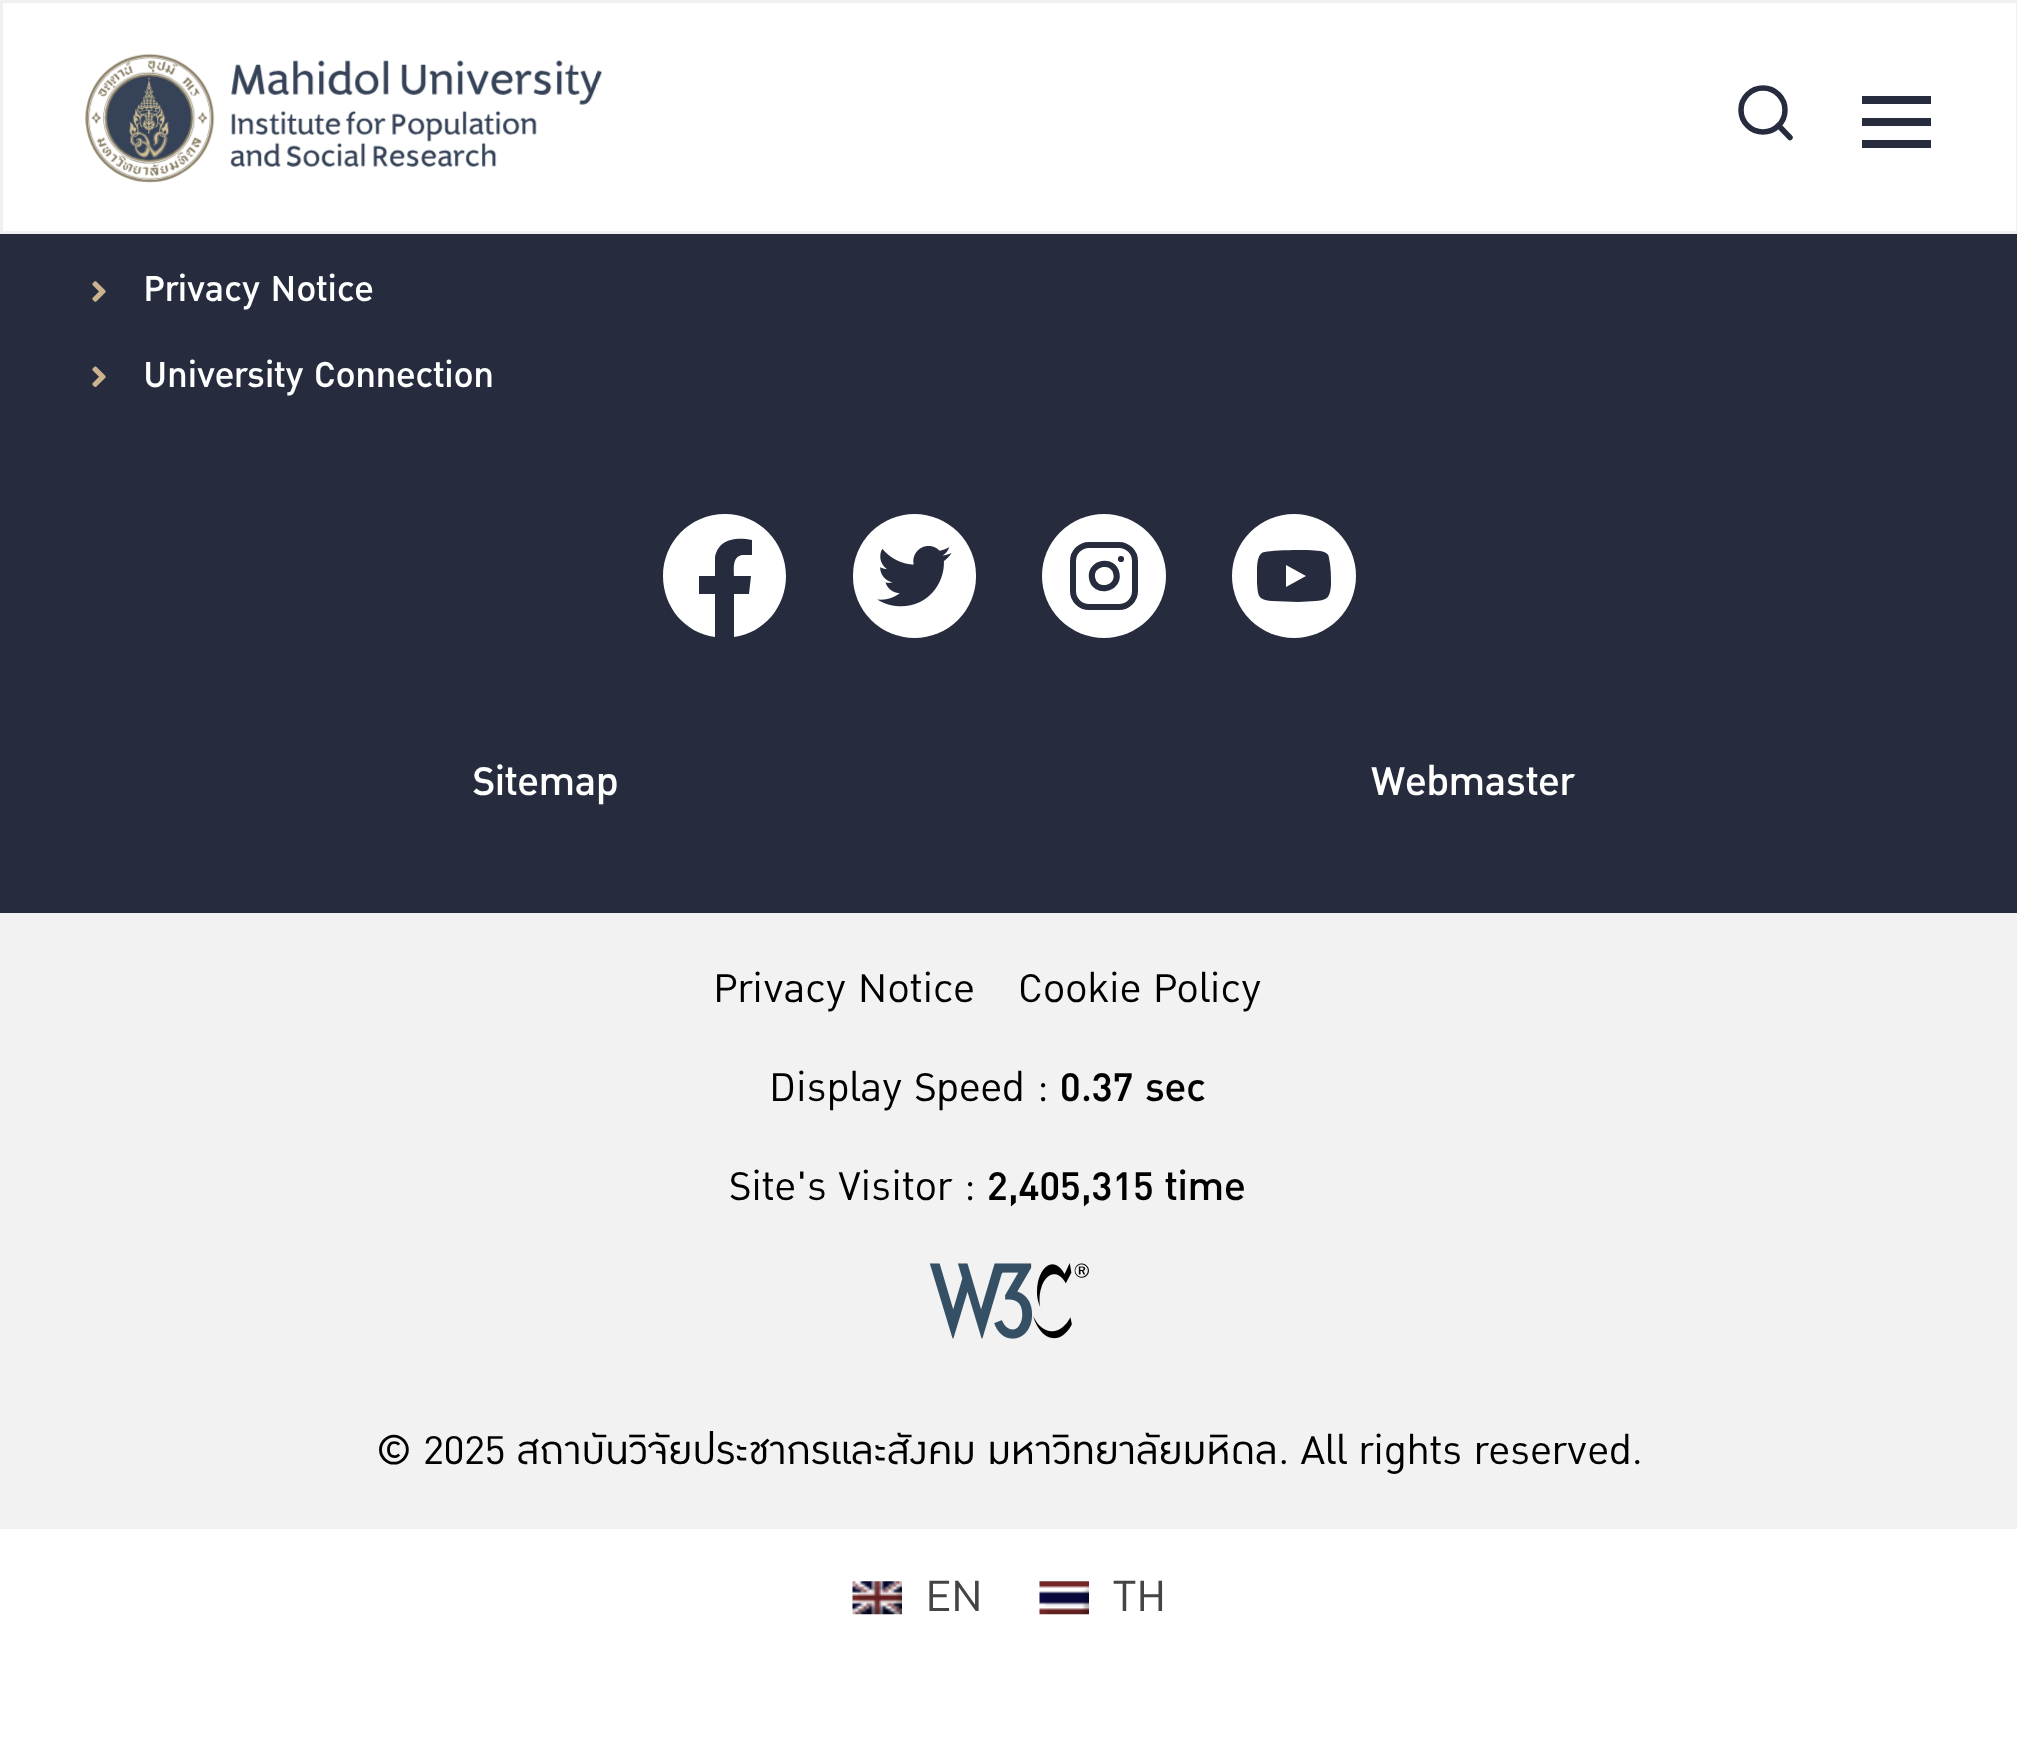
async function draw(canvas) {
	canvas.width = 2017;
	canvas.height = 1752;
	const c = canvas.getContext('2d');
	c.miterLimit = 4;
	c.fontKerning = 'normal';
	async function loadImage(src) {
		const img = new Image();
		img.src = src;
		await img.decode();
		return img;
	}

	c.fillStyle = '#fff';
	c.fillRect(0, 0, 2017, 1752);
	c.strokeStyle = '#f0f0f0';
	c.lineWidth = 3;
	c.strokeRect(1.5, 1.5, 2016, 231);
	c.drawImage(await loadImage('img1.png'), 85, 53, 517, 130);
	c.beginPath();
	c.arc(1763, 110, 22, 0, 2 * Math.PI);
	c.strokeStyle = '#262c3d';
	c.lineWidth = 5.5;
	c.stroke();
	c.beginPath();
	c.moveTo(1790, 137.5);
	c.lineTo(1778.5, 125.5);
	c.lineCap = 'round';
	c.lineJoin = 'round';
	c.stroke();
	for (const [x, y, w, h, color] of [
		[1862, 118, 69, 8, '#262c3d'],
		[1862, 96, 69, 8, '#262c3d'],
		[1862, 140, 69, 8, '#262c3d'],
		[0, 234, 2017, 679, '#262c3d'],
	]) {
		c.fillStyle = color;
		c.fillRect(x, y, w, h);
	}
	c.drawImage(await loadImage('img2.png'), 92, 281, 14, 21);
	c.font = '500 49.5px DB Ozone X';
	c.fillStyle = '#fff';
	c.fillText('Privacy Notice', 143, 301);
	c.drawImage(await loadImage('img3.png'), 92, 366, 14, 21);
	c.fillText('University Connection', 143, 387);
	c.beginPath();
	c.moveTo(786, 576);
	c.bezierCurveTo(786, 542, 759, 514, 725, 514);
	c.bezierCurveTo(690, 514, 663, 542, 663, 576);
	c.bezierCurveTo(663, 607, 685, 633, 715, 637);
	c.lineTo(715, 594);
	c.lineTo(699, 594);
	c.lineTo(699, 576);
	c.lineTo(715, 576);
	c.lineTo(715, 557);
	c.bezierCurveTo(719, 538, 737, 537, 752, 540);
	c.lineTo(752, 555);
	c.lineTo(742, 555);
	c.bezierCurveTo(732, 557, 734, 569, 734, 576);
	c.lineTo(751, 576);
	c.lineTo(749, 594);
	c.lineTo(734, 594);
	c.lineTo(734, 637);
	c.bezierCurveTo(764, 633, 786, 607, 786, 576);
	c.closePath();
	c.fill();
	c.beginPath();
	c.roundRect(853, 514, 123, 124, 61.5);
	c.fill();
	c.drawImage(await loadImage('img4.png'), 877, 545, 75, 62);
	c.beginPath();
	c.arc(1104, 576, 62, 0, 2 * Math.PI);
	c.fill();
	c.beginPath();
	c.roundRect(1073, 545, 62, 62, 16);
	c.lineWidth = 6;
	c.lineJoin = 'miter';
	c.stroke();
	c.beginPath();
	c.moveTo(1116.5, 574);
	c.bezierCurveTo(1119, 590, 1094.5, 594, 1092, 578);
	c.bezierCurveTo(1089.5, 562, 1114, 558, 1116.5, 574);
	c.closePath();
	c.moveTo(1121, 559);
	c.lineTo(1121, 559);
	c.lineWidth = 6.2;
	c.lineJoin = 'round';
	c.stroke();
	c.beginPath();
	c.arc(1294, 576, 62, 0, 2 * Math.PI);
	c.fill();
	c.save();
	c.beginPath();
	c.rect(1257, 539, 74, 74);
	c.clip();
	c.fillStyle = '#262c3d';
	c.beginPath();
	c.moveTo(1329, 558);
	c.bezierCurveTo(1329, 555, 1327, 553, 1324, 552);
	c.bezierCurveTo(1317, 549, 1274, 550, 1265, 552);
	c.bezierCurveTo(1263, 552, 1261, 553, 1260, 555);
	c.bezierCurveTo(1256, 560, 1257, 577, 1257, 583);
	c.bezierCurveTo(1258, 596, 1258, 600, 1272, 601);
	c.lineTo(1298, 602);
	c.lineTo(1316, 601);
	c.bezierCurveTo(1328, 600, 1330, 597, 1331, 585);
	c.bezierCurveTo(1331, 576, 1331, 567, 1329, 558);
	c.closePath();
	c.moveTo(1286, 587);
	c.lineTo(1286, 565);
	c.lineTo(1306, 576);
	c.closePath();
	c.fill();
	c.restore();
	c.font = '500 55px DB Ozone X';
	c.fillText('Sitemap', 473, 795);
	c.fillText('Webmaster', 1371, 795);
	c.fillStyle = '#f2f2f2';
	c.fillRect(0, 913, 2017, 616);
	c.font = '55px DB Ozone X';
	c.fillStyle = '#000';
	for (const [text, x, y] of [
		['Privacy Notice', 713, 1002],
		['Cookie Policy', 1018, 1002],
		['Display Speed :', 769, 1101],
	]) {
		c.fillText(text, x, y);
	}
	c.font = '500 55px DB Ozone X';
	c.fillText('0.37', 1060, 1101);
	c.fillText('sec', 1145, 1101);
	c.font = '55px DB Ozone X';
	c.fillText('Site\'s Visitor :', 729, 1200);
	c.font = '500 55px DB Ozone X';
	c.fillText('2,405,315', 987, 1200);
	c.fillText('time', 1165, 1200);
	c.drawImage(await loadImage('img5.png'), 929, 1263, 160, 76);
	c.font = '55px DB Ozone X';
	c.fillText('© 2025 สถาบันวิจัยประชากรและสังคม มหาวิทยาลัยมหิดล. All rights reserved.', 376, 1464);
	c.drawImage(await loadImage('img6.png'), 852, 1581, 50, 34);
	c.font = '60px DB Ozone X';
	c.fillStyle = '#444';
	c.fillText('EN', 925, 1611);
	c.drawImage(await loadImage('img7.png'), 1039, 1581, 50, 34);
	c.fillText('TH', 1113, 1611);
}

draw(document.querySelector('canvas'));
